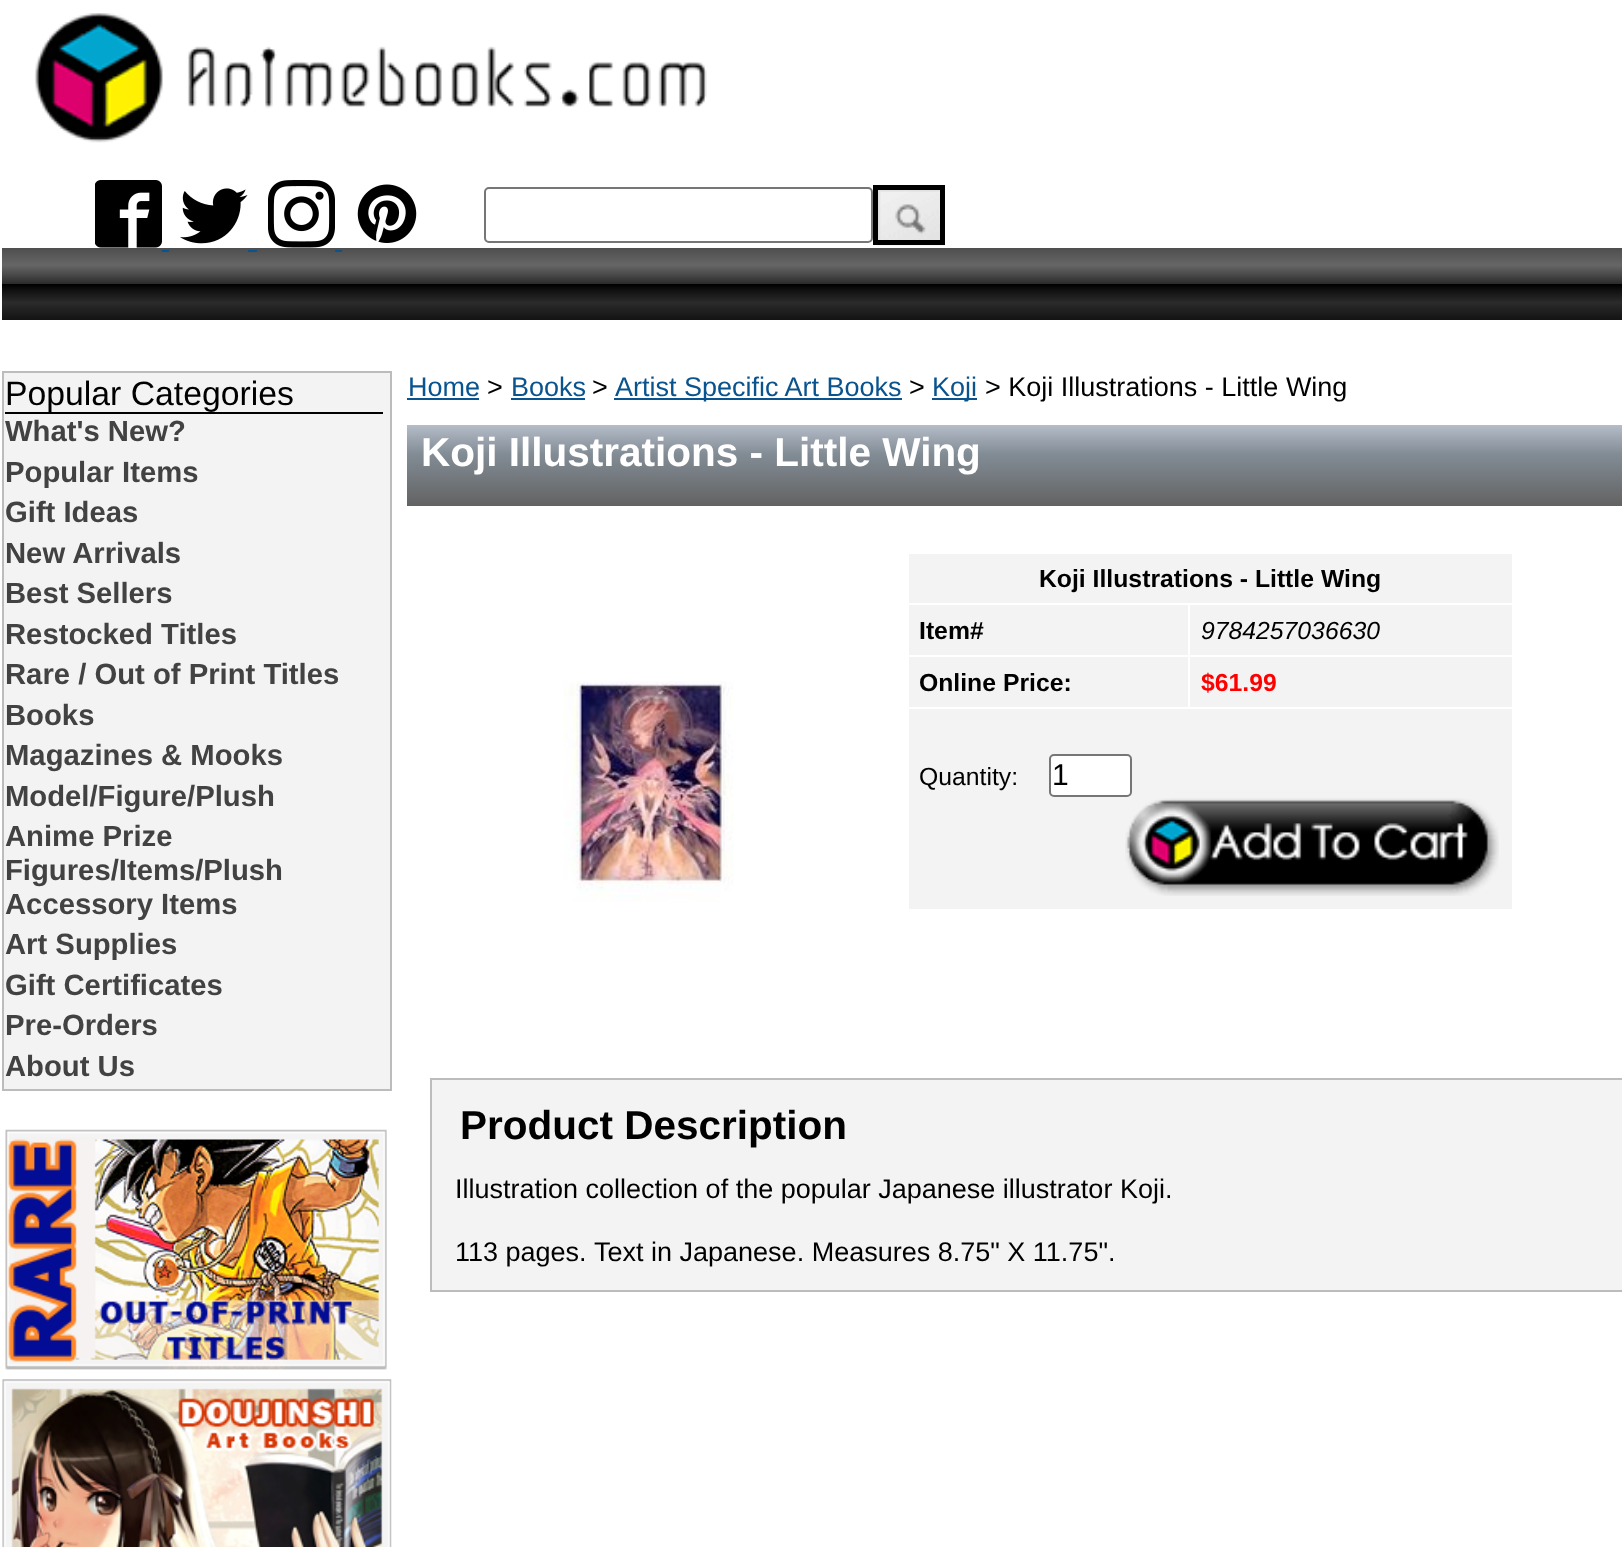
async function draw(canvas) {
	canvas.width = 1622;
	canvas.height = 1547;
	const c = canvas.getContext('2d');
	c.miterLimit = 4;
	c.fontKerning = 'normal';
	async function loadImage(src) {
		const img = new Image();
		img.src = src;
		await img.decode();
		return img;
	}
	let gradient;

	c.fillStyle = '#fff';
	c.fillRect(0, 0, 1622, 1547);
	c.drawImage(await loadImage('img1.png'), 34, 13, 673, 130);
	c.drawImage(await loadImage('img2.png'), 95, 180, 67, 68);
	c.drawImage(await loadImage('img3.png'), 180, 188, 68, 56);
	c.drawImage(await loadImage('img4.png'), 268, 180, 67, 68);
	c.drawImage(await loadImage('img5.png'), 357, 184, 60, 59);
	gradient = c.createLinearGradient(813, 247, 813, 320);
	gradient.addColorStop(0, '#4c4c4c');
	gradient.addColorStop(0.12, '#595959');
	gradient.addColorStop(0.25, '#666');
	gradient.addColorStop(0.39, '#474747');
	gradient.addColorStop(0.5, '#2c2c2c');
	gradient.addColorStop(0.51, '#000');
	gradient.addColorStop(0.6, '#111');
	gradient.addColorStop(0.76, '#2b2b2b');
	gradient.addColorStop(0.91, '#1c1c1c');
	gradient.addColorStop(1, '#131313');
	c.fillStyle = gradient;
	c.fillRect(2, 248, 1620, 72);
	for (const [x, y, w, h, color] of [
		[162, 250, 7, 2, '#09538f'],
		[248, 250, 9, 2, '#09538f'],
		[335, 250, 7, 2, '#09538f'],
	]) {
		c.fillStyle = color;
		c.fillRect(x, y, w, h);
	}
	c.beginPath();
	c.roundRect(485, 188, 387, 54, 4);
	c.strokeStyle = '#767676';
	c.lineWidth = 2;
	c.stroke();
	c.drawImage(await loadImage('img6.png'), 877, 190, 68, 56);
	c.strokeStyle = '#000';
	c.lineWidth = 5;
	c.strokeRect(875.5, 187.5, 67, 55);
	c.fillStyle = '#f3f3f4';
	c.beginPath();
	c.rect(3, 372, 388, 718);
	c.fill();
	c.strokeStyle = '#bcbcbc';
	c.lineWidth = 2;
	c.stroke();
	c.fillStyle = '#000';
	c.fillRect(5, 412, 378, 2);
	c.font = '33.75px Liberation Sans';
	c.fillText('Popular Categories', 5, 405);
	c.font = 'bold 29.25px Liberation Sans';
	c.fillStyle = '#424242';
	for (const [text, x, y] of [
		['What\'s New?', 5, 441],
		['Popular Items', 5, 482],
		['Gift Ideas', 5, 522],
		['New Arrivals', 5, 563],
		['Best Sellers', 5, 603],
		['Restocked Titles', 5, 644],
		['Rare / Out of Print Titles', 5, 684],
		['Books', 5, 725],
		['Magazines & Mooks', 5, 765],
		['Model/Figure/Plush', 5, 806],
		['Anime Prize', 5, 846],
		['Figures/Items/Plush', 5, 880],
		['Accessory Items', 5, 914],
		['Art Supplies', 5, 954],
		['Gift Certificates', 5, 995],
		['Pre-Orders', 5, 1035],
		['About Us', 5, 1076],
	]) {
		c.fillText(text, x, y);
	}
	c.drawImage(await loadImage('img7.png'), 5, 1129, 382, 241);
	c.drawImage(await loadImage('img8.png'), 2, 1379, 390, 168);
	c.font = '27px Liberation Sans';
	c.fillStyle = '#09538f';
	c.fillText('Home', 408, 396);
	c.fillRect(407, 398, 72, 2);
	c.fillStyle = '#000';
	c.fillText('>', 487, 396);
	c.fillStyle = '#09538f';
	c.fillText('Books', 511, 396);
	c.fillRect(511, 398, 74, 2);
	c.fillStyle = '#000';
	c.fillText('>', 592, 396);
	c.fillStyle = '#09538f';
	c.fillRect(614, 398, 288, 2);
	c.fillText('Artist Specific Art Books', 615, 396);
	c.fillStyle = '#000';
	c.fillText('>', 909, 396);
	c.fillStyle = '#09538f';
	c.fillRect(932, 398, 45, 2);
	c.fillText('Koji', 932, 396);
	c.fillStyle = '#000';
	c.fillText('> Koji Illustrations - Little Wing', 985, 396);
	gradient = c.createLinearGradient(1016, 425, 1016, 506);
	gradient.addColorStop(0, '#b5bdc8');
	gradient.addColorStop(0.36, '#828c95');
	gradient.addColorStop(1, '#626262');
	c.fillStyle = gradient;
	c.fillRect(407, 425, 1215, 81);
	c.font = 'bold 40.5px Liberation Sans';
	c.fillStyle = '#fff';
	c.fillText('Koji Illustrations - Little Wing', 421, 466);
	c.drawImage(await loadImage('img9.png'), 563, 681, 171, 221);
	c.fillStyle = '#f3f3f3';
	c.fillRect(909, 554, 603, 49);
	c.font = 'bold 24.75px Liberation Sans';
	c.fillStyle = '#000';
	c.fillText('Koji Illustrations - Little Wing', 1039, 587);
	c.fillStyle = '#f3f3f3';
	c.fillRect(909, 605, 279, 50);
	c.fillStyle = '#000';
	c.fillText('Item#', 919, 639);
	c.fillStyle = '#f3f3f3';
	c.fillRect(1190, 605, 322, 50);
	c.font = 'italic 24.75px Liberation Sans';
	c.fillStyle = '#000';
	c.fillText('9784257036630', 1201, 639);
	c.fillStyle = '#f3f3f3';
	c.fillRect(909, 657, 279, 50);
	c.font = 'bold 24.75px Liberation Sans';
	c.fillStyle = '#000';
	c.fillText('Online Price:', 919, 691);
	c.fillStyle = '#f3f3f3';
	c.fillRect(1190, 657, 322, 50);
	c.fillStyle = '#f00';
	c.fillText('$61.99', 1201, 691);
	c.fillStyle = '#f3f3f3';
	c.fillRect(909, 709, 603, 200);
	c.font = '24.75px Liberation Sans';
	c.fillStyle = '#000';
	c.fillText('Quantity:', 919, 785);
	c.fillStyle = '#fff';
	c.beginPath();
	c.roundRect(1050, 755, 81, 41, 4);
	c.fill();
	c.strokeStyle = '#767676';
	c.stroke();
	c.font = '30px Liberation Sans';
	c.fillStyle = '#000';
	c.fillText('1', 1052, 785);
	c.drawImage(await loadImage('img10.png'), 1125, 798, 374, 98);
	c.fillStyle = '#f3f3f4';
	c.beginPath();
	c.rect(431, 1079, 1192, 212);
	c.fill();
	c.strokeStyle = '#bcbcbc';
	c.stroke();
	c.font = 'bold 40.5px Liberation Sans';
	c.fillStyle = '#000';
	c.fillText('Product Description', 460, 1139);
	c.font = '27px Liberation Sans';
	for (const [text, x, y] of [
		['Illustration collection of the popular Japanese illustrator Koji.', 455, 1198],
		['113 pages.', 455, 1261],
		['Text in Japanese. Measures 8.75" X 11.75".', 594, 1261],
	]) {
		c.fillText(text, x, y);
	}
}

draw(document.querySelector('canvas'));
